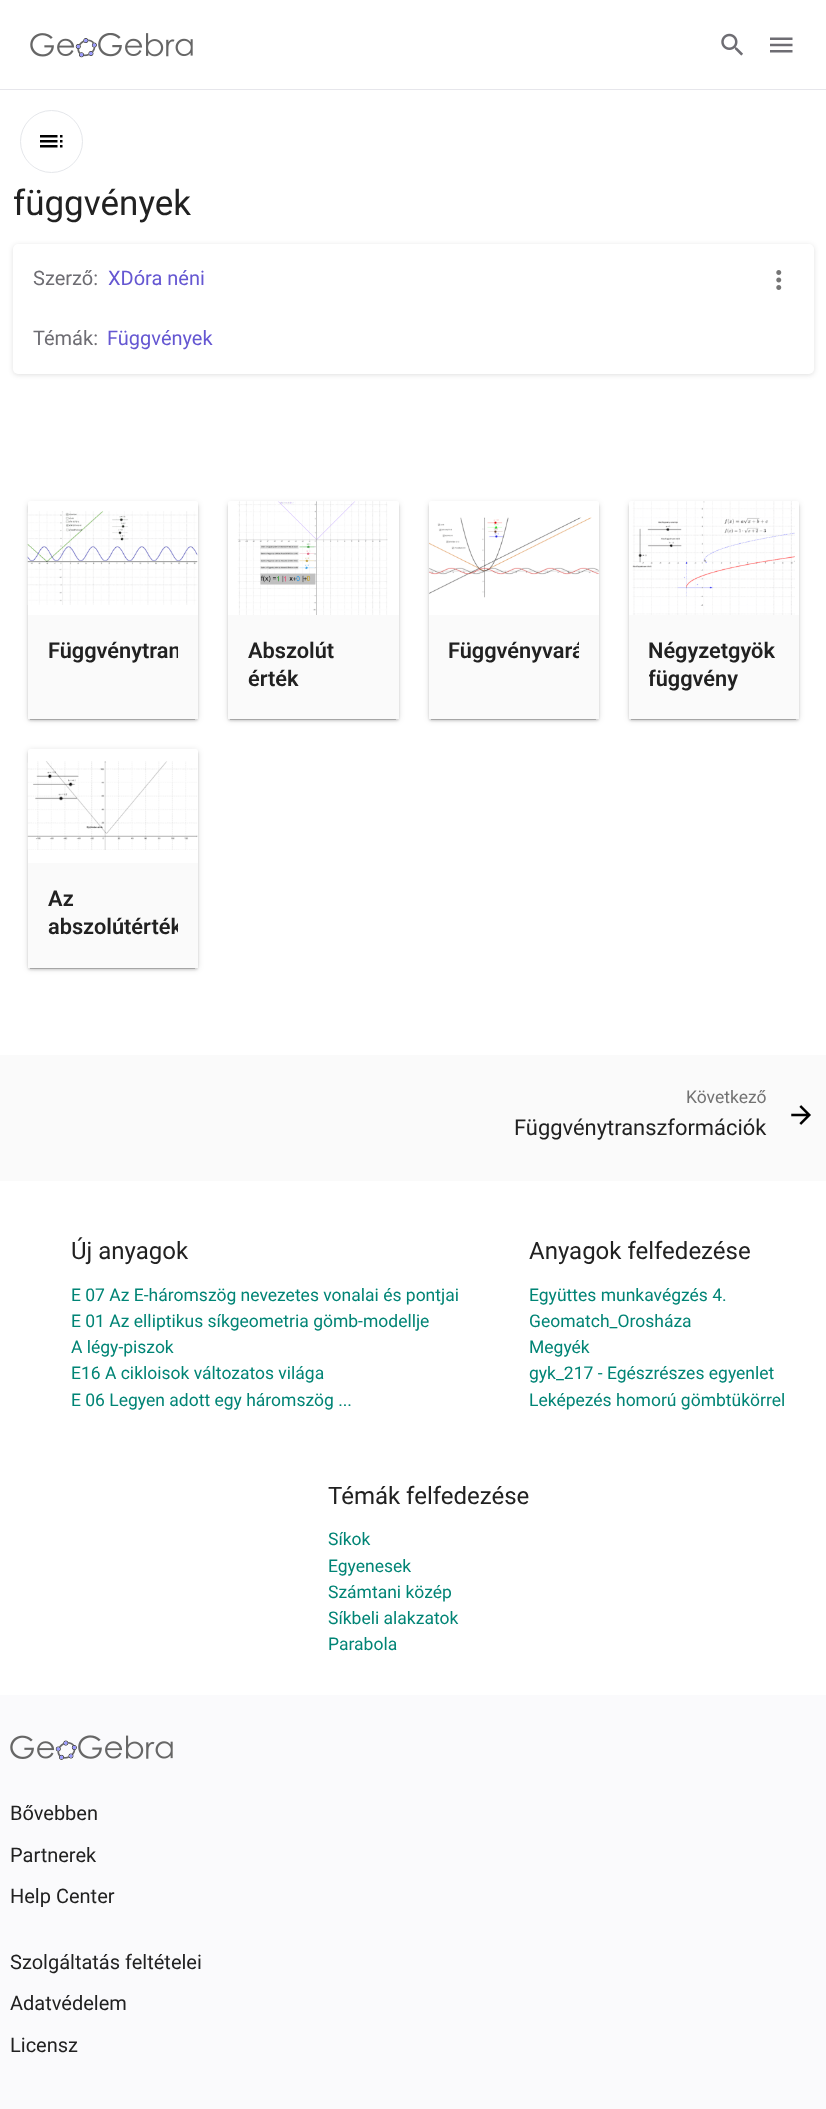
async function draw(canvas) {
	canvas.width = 826;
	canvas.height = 2109;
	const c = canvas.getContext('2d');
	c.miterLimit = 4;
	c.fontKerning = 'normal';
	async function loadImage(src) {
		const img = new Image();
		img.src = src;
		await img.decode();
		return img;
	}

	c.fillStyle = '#fff';
	c.fillRect(0, 0, 826, 2109);
	c.fillStyle = '#e6e6eb';
	c.fillRect(0, 89, 826, 1);
	c.drawImage(await loadImage('img1.png'), 30, 33, 163, 25);
	c.drawImage(await loadImage('img2.png'), 721, 33, 22, 23);
	c.drawImage(await loadImage('img3.png'), 770, 37, 23, 16);
	c.beginPath();
	c.arc(51.5, 141.5, 31, 0, 2 * Math.PI);
	c.strokeStyle = '#e5e7eb';
	c.stroke();
	c.drawImage(await loadImage('img4.png'), 40, 135, 23, 13);
	c.font = '35px Roboto';
	c.fillStyle = '#212121';
	c.fillText('függvények', 13, 215);
	c.fillStyle = '#1c1c1f24';
	c.filter = 'blur(2.5px)';
	c.beginPath();
	c.roundRect(13, 245, 801, 130, 5);
	c.fill();
	c.filter = 'none';
	c.fillStyle = '#fff';
	c.beginPath();
	c.roundRect(13, 244, 801, 130, 5);
	c.fill();
	c.font = '20px Roboto';
	c.fillStyle = '#6e6d73';
	c.fillText('Szerző:', 33, 285);
	c.fillStyle = '#6557d2';
	c.fillText('XDóra néni', 108, 285);
	c.fillStyle = '#6e6d73';
	c.fillText('Témák:', 33, 345);
	c.fillStyle = '#6557d2';
	c.fillText('Függvények', 107, 345);
	c.drawImage(await loadImage('img5.png'), 776, 270, 6, 20);
	c.save();
	c.beginPath();
	c.moveTo(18, 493);
	c.lineTo(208, 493);
	c.lineTo(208, 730);
	c.lineTo(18, 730);
	c.closePath();
	c.moveTo(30.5, 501);
	c.lineTo(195.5, 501);
	c.bezierCurveTo(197, 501, 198, 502, 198, 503.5);
	c.lineTo(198, 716.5);
	c.bezierCurveTo(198, 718, 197, 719, 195.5, 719);
	c.lineTo(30.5, 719);
	c.bezierCurveTo(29, 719, 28, 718, 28, 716.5);
	c.lineTo(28, 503.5);
	c.bezierCurveTo(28, 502, 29, 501, 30.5, 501);
	c.closePath();
	c.clip('evenodd');
	c.fillStyle = '#0000001f';
	c.filter = 'blur(3px)';
	c.beginPath();
	c.roundRect(28, 503, 170, 217, 2.5);
	c.fill();
	c.filter = 'none';
	c.restore();
	c.save();
	c.beginPath();
	c.moveTo(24, 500);
	c.lineTo(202, 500);
	c.lineTo(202, 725);
	c.lineTo(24, 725);
	c.closePath();
	c.moveTo(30.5, 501);
	c.lineTo(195.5, 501);
	c.bezierCurveTo(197, 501, 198, 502, 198, 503.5);
	c.lineTo(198, 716.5);
	c.bezierCurveTo(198, 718, 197, 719, 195.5, 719);
	c.lineTo(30.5, 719);
	c.bezierCurveTo(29, 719, 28, 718, 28, 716.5);
	c.lineTo(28, 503.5);
	c.bezierCurveTo(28, 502, 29, 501, 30.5, 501);
	c.closePath();
	c.clip('evenodd');
	c.fillStyle = '#00000024';
	c.filter = 'blur(1px)';
	c.beginPath();
	c.roundRect(28, 504, 170, 217, 2.5);
	c.fill();
	c.filter = 'none';
	c.restore();
	c.save();
	c.beginPath();
	c.rect(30, 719, 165, 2);
	c.clip();
	c.fillStyle = '#00000033';
	c.filter = 'blur(0.5px)';
	c.beginPath();
	c.rect(30, 508, 165, 212);
	c.fill();
	c.filter = 'none';
	c.restore();
	c.drawImage(await loadImage('img6.png'), 27, 511, 171, 94);
	c.fillStyle = '#fafafa';
	c.fillRect(28, 615, 170, 104);
	c.save();
	c.beginPath();
	c.rect(48, 638, 130, 58);
	c.clip();
	c.font = '600 21.75px Roboto';
	c.fillStyle = '#212121';
	c.fillText('Függvénytran', 48, 658);
	c.restore();
	c.save();
	c.beginPath();
	c.moveTo(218, 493);
	c.lineTo(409, 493);
	c.lineTo(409, 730);
	c.lineTo(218, 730);
	c.closePath();
	c.moveTo(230.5, 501);
	c.lineTo(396.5, 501);
	c.bezierCurveTo(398, 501, 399, 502, 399, 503.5);
	c.lineTo(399, 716.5);
	c.bezierCurveTo(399, 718, 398, 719, 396.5, 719);
	c.lineTo(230.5, 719);
	c.bezierCurveTo(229, 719, 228, 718, 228, 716.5);
	c.lineTo(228, 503.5);
	c.bezierCurveTo(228, 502, 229, 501, 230.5, 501);
	c.closePath();
	c.clip('evenodd');
	c.fillStyle = '#0000001f';
	c.filter = 'blur(3px)';
	c.beginPath();
	c.roundRect(228, 503, 171, 217, 2.5);
	c.fill();
	c.filter = 'none';
	c.restore();
	c.save();
	c.beginPath();
	c.moveTo(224, 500);
	c.lineTo(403, 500);
	c.lineTo(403, 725);
	c.lineTo(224, 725);
	c.closePath();
	c.moveTo(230.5, 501);
	c.lineTo(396.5, 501);
	c.bezierCurveTo(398, 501, 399, 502, 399, 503.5);
	c.lineTo(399, 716.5);
	c.bezierCurveTo(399, 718, 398, 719, 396.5, 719);
	c.lineTo(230.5, 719);
	c.bezierCurveTo(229, 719, 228, 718, 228, 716.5);
	c.lineTo(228, 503.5);
	c.bezierCurveTo(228, 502, 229, 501, 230.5, 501);
	c.closePath();
	c.clip('evenodd');
	c.fillStyle = '#00000024';
	c.filter = 'blur(1px)';
	c.beginPath();
	c.roundRect(228, 504, 171, 217, 2.5);
	c.fill();
	c.filter = 'none';
	c.restore();
	c.save();
	c.beginPath();
	c.rect(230, 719, 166, 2);
	c.clip();
	c.fillStyle = '#00000033';
	c.filter = 'blur(0.5px)';
	c.beginPath();
	c.rect(230, 508, 166, 212);
	c.fill();
	c.filter = 'none';
	c.restore();
	c.drawImage(await loadImage('img7.png'), 237, 501, 151, 114);
	c.fillRect(228, 615, 171, 104);
	c.font = '600 21.75px Roboto';
	c.fillStyle = '#212121';
	c.fillText('Abszolút', 248, 658);
	c.fillText('érték', 248, 686);
	c.save();
	c.beginPath();
	c.moveTo(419, 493);
	c.lineTo(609, 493);
	c.lineTo(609, 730);
	c.lineTo(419, 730);
	c.closePath();
	c.moveTo(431.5, 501);
	c.lineTo(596.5, 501);
	c.bezierCurveTo(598, 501, 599, 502, 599, 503.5);
	c.lineTo(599, 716.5);
	c.bezierCurveTo(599, 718, 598, 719, 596.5, 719);
	c.lineTo(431.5, 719);
	c.bezierCurveTo(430, 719, 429, 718, 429, 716.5);
	c.lineTo(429, 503.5);
	c.bezierCurveTo(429, 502, 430, 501, 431.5, 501);
	c.closePath();
	c.clip('evenodd');
	c.fillStyle = '#0000001f';
	c.filter = 'blur(3px)';
	c.beginPath();
	c.roundRect(429, 503, 170, 217, 2.5);
	c.fill();
	c.filter = 'none';
	c.restore();
	c.save();
	c.beginPath();
	c.moveTo(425, 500);
	c.lineTo(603, 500);
	c.lineTo(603, 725);
	c.lineTo(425, 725);
	c.closePath();
	c.moveTo(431.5, 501);
	c.lineTo(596.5, 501);
	c.bezierCurveTo(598, 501, 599, 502, 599, 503.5);
	c.lineTo(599, 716.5);
	c.bezierCurveTo(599, 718, 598, 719, 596.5, 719);
	c.lineTo(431.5, 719);
	c.bezierCurveTo(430, 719, 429, 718, 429, 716.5);
	c.lineTo(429, 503.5);
	c.bezierCurveTo(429, 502, 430, 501, 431.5, 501);
	c.closePath();
	c.clip('evenodd');
	c.fillStyle = '#00000024';
	c.filter = 'blur(1px)';
	c.beginPath();
	c.roundRect(429, 504, 170, 217, 2.5);
	c.fill();
	c.filter = 'none';
	c.restore();
	c.save();
	c.beginPath();
	c.rect(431, 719, 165, 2);
	c.clip();
	c.fillStyle = '#00000033';
	c.filter = 'blur(0.5px)';
	c.beginPath();
	c.rect(431, 508, 165, 212);
	c.fill();
	c.filter = 'none';
	c.restore();
	c.drawImage(await loadImage('img8.png'), 429, 517, 170, 81);
	c.fillStyle = '#fafafa';
	c.fillRect(429, 615, 170, 104);
	c.save();
	c.beginPath();
	c.rect(449, 638, 130, 58);
	c.clip();
	c.fillStyle = '#212121';
	c.fillText('Függvényvará', 448, 658);
	c.restore();
	c.save();
	c.beginPath();
	c.moveTo(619, 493);
	c.lineTo(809, 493);
	c.lineTo(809, 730);
	c.lineTo(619, 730);
	c.closePath();
	c.moveTo(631.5, 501);
	c.lineTo(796.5, 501);
	c.bezierCurveTo(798, 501, 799, 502, 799, 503.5);
	c.lineTo(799, 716.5);
	c.bezierCurveTo(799, 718, 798, 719, 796.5, 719);
	c.lineTo(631.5, 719);
	c.bezierCurveTo(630, 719, 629, 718, 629, 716.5);
	c.lineTo(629, 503.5);
	c.bezierCurveTo(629, 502, 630, 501, 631.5, 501);
	c.closePath();
	c.clip('evenodd');
	c.fillStyle = '#0000001f';
	c.filter = 'blur(3px)';
	c.beginPath();
	c.roundRect(629, 503, 170, 217, 2.5);
	c.fill();
	c.filter = 'none';
	c.restore();
	c.save();
	c.beginPath();
	c.moveTo(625, 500);
	c.lineTo(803, 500);
	c.lineTo(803, 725);
	c.lineTo(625, 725);
	c.closePath();
	c.moveTo(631.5, 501);
	c.lineTo(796.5, 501);
	c.bezierCurveTo(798, 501, 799, 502, 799, 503.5);
	c.lineTo(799, 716.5);
	c.bezierCurveTo(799, 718, 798, 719, 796.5, 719);
	c.lineTo(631.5, 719);
	c.bezierCurveTo(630, 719, 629, 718, 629, 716.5);
	c.lineTo(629, 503.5);
	c.bezierCurveTo(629, 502, 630, 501, 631.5, 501);
	c.closePath();
	c.clip('evenodd');
	c.fillStyle = '#00000024';
	c.filter = 'blur(1px)';
	c.beginPath();
	c.roundRect(629, 504, 170, 217, 2.5);
	c.fill();
	c.filter = 'none';
	c.restore();
	c.save();
	c.beginPath();
	c.rect(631, 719, 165, 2);
	c.clip();
	c.fillStyle = '#00000033';
	c.filter = 'blur(0.5px)';
	c.beginPath();
	c.rect(631, 508, 165, 212);
	c.fill();
	c.filter = 'none';
	c.restore();
	c.drawImage(await loadImage('img9.png'), 632, 501, 163, 114);
	c.fillRect(629, 615, 170, 104);
	c.fillStyle = '#212121';
	c.fillText('Négyzetgyök', 648, 658);
	c.save();
	c.beginPath();
	c.rect(649, 638, 130, 58);
	c.clip();
	c.fillText('függvény', 648, 686);
	c.restore();
	c.save();
	c.beginPath();
	c.moveTo(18, 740);
	c.lineTo(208, 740);
	c.lineTo(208, 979);
	c.lineTo(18, 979);
	c.closePath();
	c.moveTo(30.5, 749);
	c.lineTo(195.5, 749);
	c.bezierCurveTo(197, 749, 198, 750, 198, 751.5);
	c.lineTo(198, 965.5);
	c.bezierCurveTo(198, 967, 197, 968, 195.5, 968);
	c.lineTo(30.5, 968);
	c.bezierCurveTo(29, 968, 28, 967, 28, 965.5);
	c.lineTo(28, 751.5);
	c.bezierCurveTo(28, 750, 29, 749, 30.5, 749);
	c.closePath();
	c.clip('evenodd');
	c.fillStyle = '#0000001f';
	c.filter = 'blur(3px)';
	c.beginPath();
	c.roundRect(28, 750, 170, 219, 2.5);
	c.fill();
	c.filter = 'none';
	c.restore();
	c.save();
	c.beginPath();
	c.moveTo(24, 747);
	c.lineTo(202, 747);
	c.lineTo(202, 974);
	c.lineTo(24, 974);
	c.closePath();
	c.moveTo(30.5, 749);
	c.lineTo(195.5, 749);
	c.bezierCurveTo(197, 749, 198, 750, 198, 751.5);
	c.lineTo(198, 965.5);
	c.bezierCurveTo(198, 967, 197, 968, 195.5, 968);
	c.lineTo(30.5, 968);
	c.bezierCurveTo(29, 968, 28, 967, 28, 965.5);
	c.lineTo(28, 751.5);
	c.bezierCurveTo(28, 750, 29, 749, 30.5, 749);
	c.closePath();
	c.clip('evenodd');
	c.fillStyle = '#00000024';
	c.filter = 'blur(1px)';
	c.beginPath();
	c.roundRect(28, 751, 170, 219, 2.5);
	c.fill();
	c.filter = 'none';
	c.restore();
	c.save();
	c.beginPath();
	c.rect(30, 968, 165, 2);
	c.clip();
	c.fillStyle = '#00000033';
	c.filter = 'blur(0.5px)';
	c.beginPath();
	c.rect(30, 755, 165, 214);
	c.fill();
	c.filter = 'none';
	c.restore();
	c.drawImage(await loadImage('img10.png'), 27, 761, 171, 89);
	c.fillStyle = '#fafafa';
	c.fillRect(28, 863, 170, 105);
	c.fillStyle = '#212121';
	c.fillText('Az', 48, 906);
	c.save();
	c.beginPath();
	c.rect(48, 885, 130, 60);
	c.clip();
	c.fillText('abszolútérték', 48, 934);
	c.restore();
	c.fillStyle = '#fafafa';
	c.fillRect(0, 1055, 826, 126);
	c.font = '17.5px Roboto';
	c.fillStyle = '#737373';
	c.fillText('Következő', 686, 1103);
	c.drawImage(await loadImage('img11.png'), 791, 1105, 20, 20);
	c.font = '21.9px Roboto';
	c.fillStyle = '#212121';
	c.fillText('Függvénytranszformációk', 514, 1135);
	c.font = '24px Roboto';
	c.fillText('Új anyagok', 71, 1259);
	c.font = '17.5px Roboto';
	c.fillStyle = '#008475';
	for (const [text, x, y] of [
		['E 07 Az E-háromszög nevezetes vonalai és pontjai', 71, 1301],
		['E 01 Az elliptikus síkgeometria gömb-modellje', 71, 1327],
		['A légy-piszok', 71, 1353],
		['E16 A cikloisok változatos világa', 71, 1379],
		['E 06 Legyen adott egy háromszög ...', 71, 1406],
	]) {
		c.fillText(text, x, y);
	}
	c.font = '24px Roboto';
	c.fillStyle = '#212121';
	c.fillText('Anyagok felfedezése', 529, 1259);
	c.font = '17.5px Roboto';
	c.fillStyle = '#008475';
	for (const [text, x, y] of [
		['Együttes munkavégzés 4.', 529, 1301],
		['Geomatch_Orosháza', 529, 1327],
		['Megyék', 529, 1353],
		['gyk_217 - Egészrészes egyenlet', 529, 1379],
		['Leképezés homorú gömbtükörrel', 529, 1406],
	]) {
		c.fillText(text, x, y);
	}
	c.font = '24px Roboto';
	c.fillStyle = '#212121';
	c.fillText('Témák felfedezése', 328, 1504);
	c.font = '17.5px Roboto';
	c.fillStyle = '#008475';
	for (const [text, x, y] of [
		['Síkok', 328, 1545],
		['Egyenesek', 328, 1572],
		['Számtani közép', 328, 1598],
		['Síkbeli alakzatok', 328, 1624],
		['Parabola', 328, 1650],
	]) {
		c.fillText(text, x, y);
	}
	c.fillStyle = '#fafafc';
	c.fillRect(0, 1695, 826, 414);
	c.drawImage(await loadImage('img12.png'), 10, 1735, 163, 25);
	c.font = '20px Roboto';
	c.fillStyle = '#212121';
	for (const [text, x, y] of [
		['Bővebben', 10, 1820],
		['Partnerek', 10, 1862],
		['Help Center', 10, 1903],
		['Szolgáltatás feltételei', 10, 1969],
		['Adatvédelem', 10, 2010],
		['Licensz', 10, 2052],
	]) {
		c.fillText(text, x, y);
	}
}

draw(document.querySelector('canvas'));
